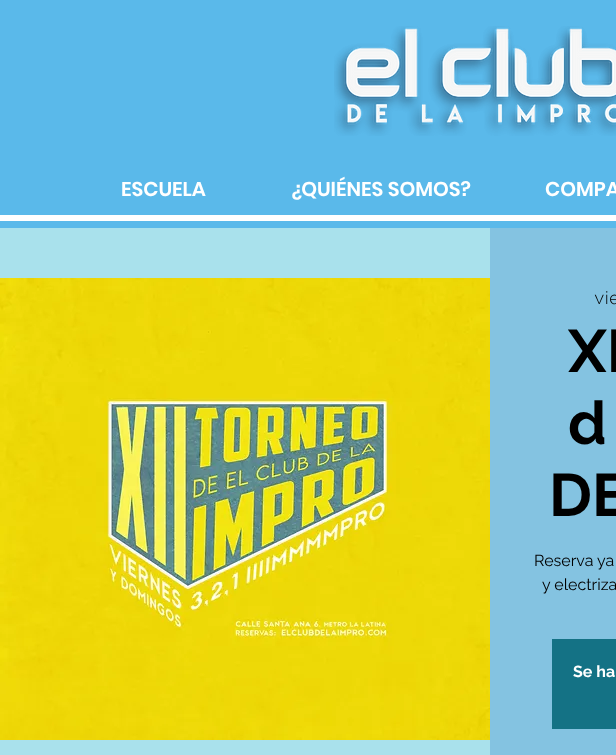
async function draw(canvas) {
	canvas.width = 616;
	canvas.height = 755;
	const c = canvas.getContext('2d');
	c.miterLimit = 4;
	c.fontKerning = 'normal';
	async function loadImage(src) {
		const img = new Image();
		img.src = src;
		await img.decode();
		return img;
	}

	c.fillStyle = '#5ab9ea';
	c.fillRect(0, 0, 616, 755);
	c.drawImage(await loadImage('img1.png'), 334, 26, 282, 110);
	c.font = '600 20px Poppins';
	c.fillStyle = '#fff';
	for (const [text, x, y] of [
		['ESCUELA', 121, 196],
		['¿QUIÉNES SOMOS?', 291, 196],
		['COMPA', 545, 196],
	]) {
		c.fillText(text, x, y);
	}
	c.fillRect(0, 215, 616, 6);
	c.fillStyle = '#a9e1ec';
	c.fillRect(0, 228, 490, 527);
	c.drawImage(await loadImage('img2.png'), 0, 278, 490, 462);
	c.fillStyle = '#84c3e1';
	c.fillRect(490, 228, 126, 527);
	c.font = '300 18px Gotham';
	c.fillStyle = '#000';
	c.fillText('vie', 594, 304);
	c.font = 'bold 60px Raleway';
	for (const [text, x, y] of [
		['XI', 568, 372],
		['d', 568, 444],
		['DE', 549, 516],
	]) {
		c.fillText(text, x, y);
	}
	c.font = '16px Raleway';
	c.fillText('Reserva ya', 534, 566);
	c.fillText('y electriza', 542, 590);
	c.fillStyle = '#147285';
	c.fillRect(552, 639, 64, 90);
	c.font = 'bold 16px Raleway';
	c.fillStyle = '#fff';
	c.fillText('Se ha', 573, 677);
}

draw(document.querySelector('canvas'));
